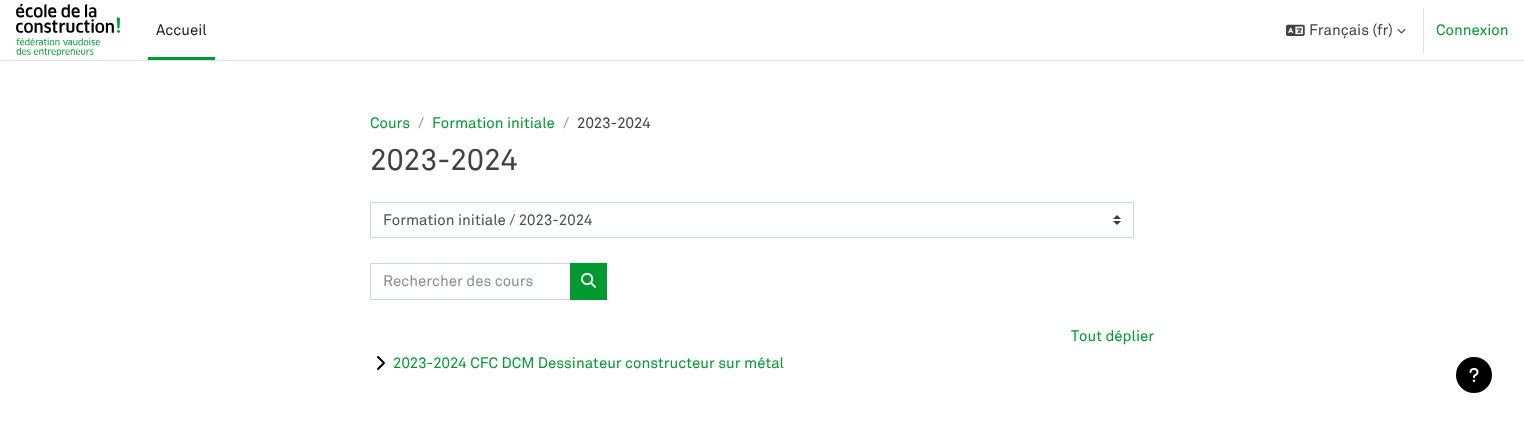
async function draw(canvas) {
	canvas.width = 1524;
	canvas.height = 425;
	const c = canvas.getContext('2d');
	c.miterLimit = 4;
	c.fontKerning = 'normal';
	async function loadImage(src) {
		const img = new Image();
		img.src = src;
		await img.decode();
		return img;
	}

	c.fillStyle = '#fff';
	c.fillRect(0, 0, 1524, 425);
	c.fillStyle = '#dee2e6';
	c.fillRect(0, 60, 1524, 1);
	c.drawImage(await loadImage('img1.png'), 16, 4, 104, 52);
	c.fillStyle = '#009932';
	c.fillRect(148, 57, 67, 3);
	c.font = '500 15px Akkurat';
	c.fillStyle = '#1a1a1a';
	c.fillText('Accueil', 156, 35);
	c.drawImage(await loadImage('img2.png'), 1286, 24, 19, 12);
	c.fillStyle = '#424141';
	c.fillText('Français (fr)', 1309, 35);
	c.drawImage(await loadImage('img3.png'), 1397, 29, 9, 5);
	c.fillStyle = '#dee2e6';
	c.fillRect(1423, 8, 1, 45);
	c.fillStyle = '#009932';
	c.fillText('Connexion', 1436, 35);
	c.fillText('Cours', 370, 128);
	c.fillStyle = '#868e96';
	c.fillText('/', 418, 128);
	c.fillStyle = '#009932';
	c.fillText('Formation initiale', 432, 128);
	c.fillStyle = '#868e96';
	c.fillText('/', 563, 128);
	c.fillStyle = '#424141';
	c.fillText('2023-2024', 577, 128);
	c.font = '500 30px Akkurat';
	c.fillText('2023-2024', 370, 170);
	c.drawImage(await loadImage('img4.png'), 1113, 215, 8, 10);
	c.strokeStyle = '#ced4da';
	c.strokeRect(370.5, 202.5, 763, 35);
	c.font = '500 15px Akkurat';
	c.fillStyle = '#495057';
	c.fillText('Formation initiale / 2023-2024', 383, 225);
	c.strokeRect(370.5, 263.5, 200, 36);
	c.fillStyle = '#868e96';
	c.fillText('Rechercher des cours', 383, 286);
	c.fillStyle = '#009932';
	c.fillRect(570, 263, 37, 37);
	c.drawImage(await loadImage('img5.png'), 581, 272, 15, 16);
	c.fillText('Tout déplier', 1071, 341);
	c.drawImage(await loadImage('img6.png'), 377, 356, 8, 14);
	c.fillText('2023-2024 CFC DCM Dessinateur constructeur sur métal', 393, 368);
	c.fillStyle = '#000';
	c.beginPath();
	c.arc(1474, 375, 18, 0, 2 * Math.PI);
	c.fill();
	c.drawImage(await loadImage('img7.png'), 1469, 368, 10, 14);
}

draw(document.querySelector('canvas'));
